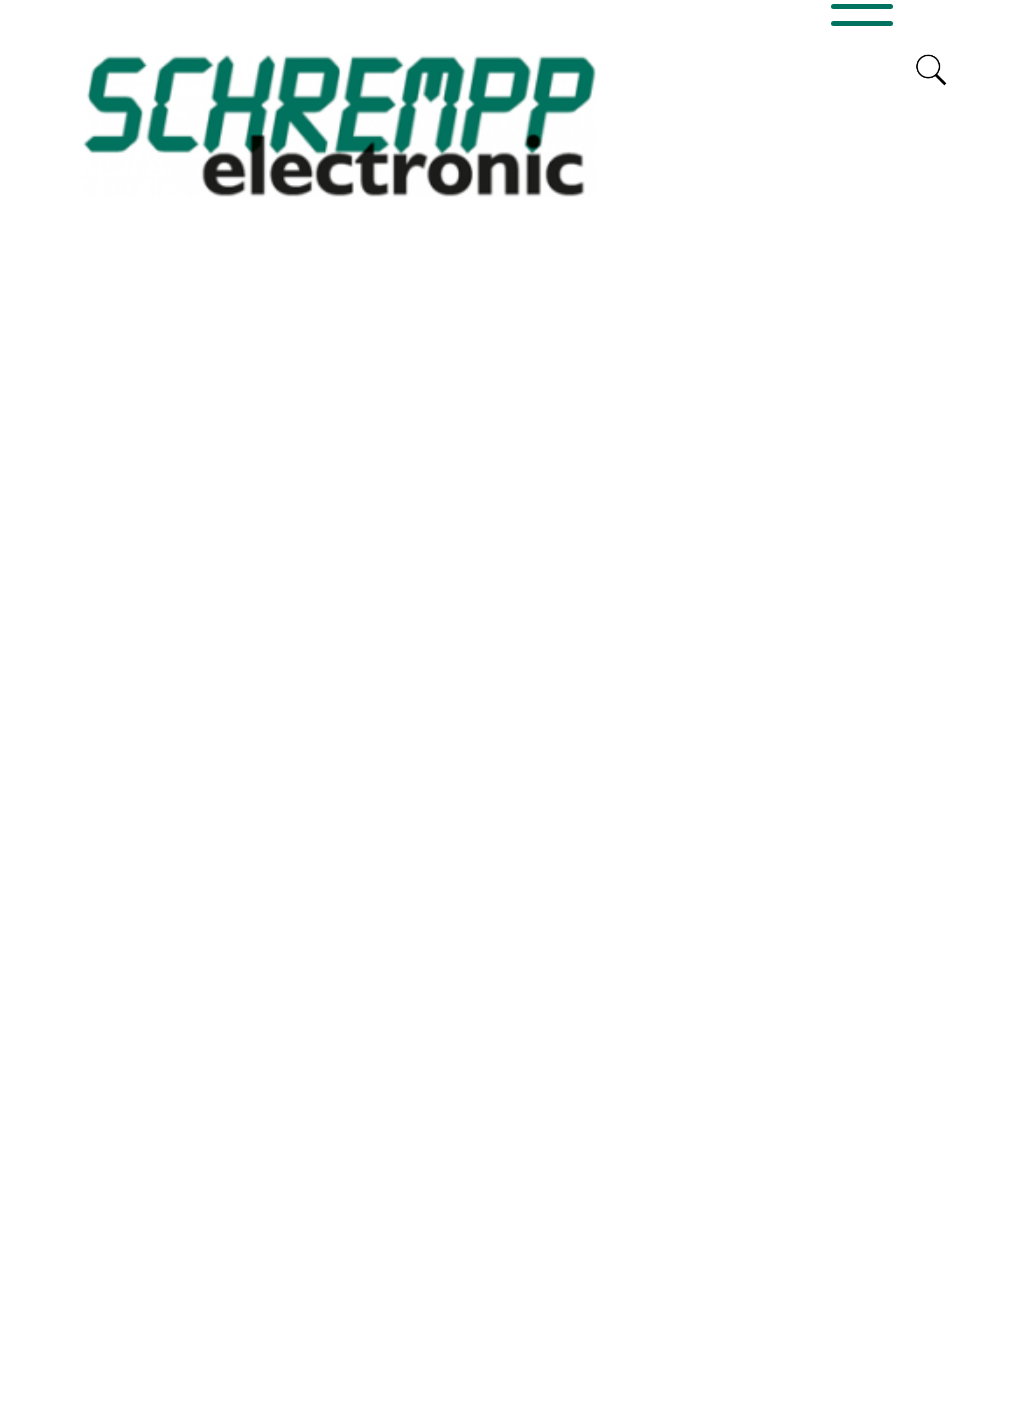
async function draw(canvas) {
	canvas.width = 1025;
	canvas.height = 1416;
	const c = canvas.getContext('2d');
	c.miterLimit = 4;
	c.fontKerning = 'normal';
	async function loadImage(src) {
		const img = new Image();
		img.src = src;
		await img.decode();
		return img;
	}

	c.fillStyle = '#fff';
	c.fillRect(0, 0, 1025, 1416);
	c.fillStyle = '#007360';
	c.beginPath();
	c.roundRect(831, 4, 62, 5, 2.5);
	c.fill();
	c.beginPath();
	c.roundRect(831, 21, 62, 5, 2.5);
	c.fill();
	c.drawImage(await loadImage('img1.png'), 916, 54, 31, 32);
	c.drawImage(await loadImage('img2.png'), 83, 54, 513, 143);
}

draw(document.querySelector('canvas'));
